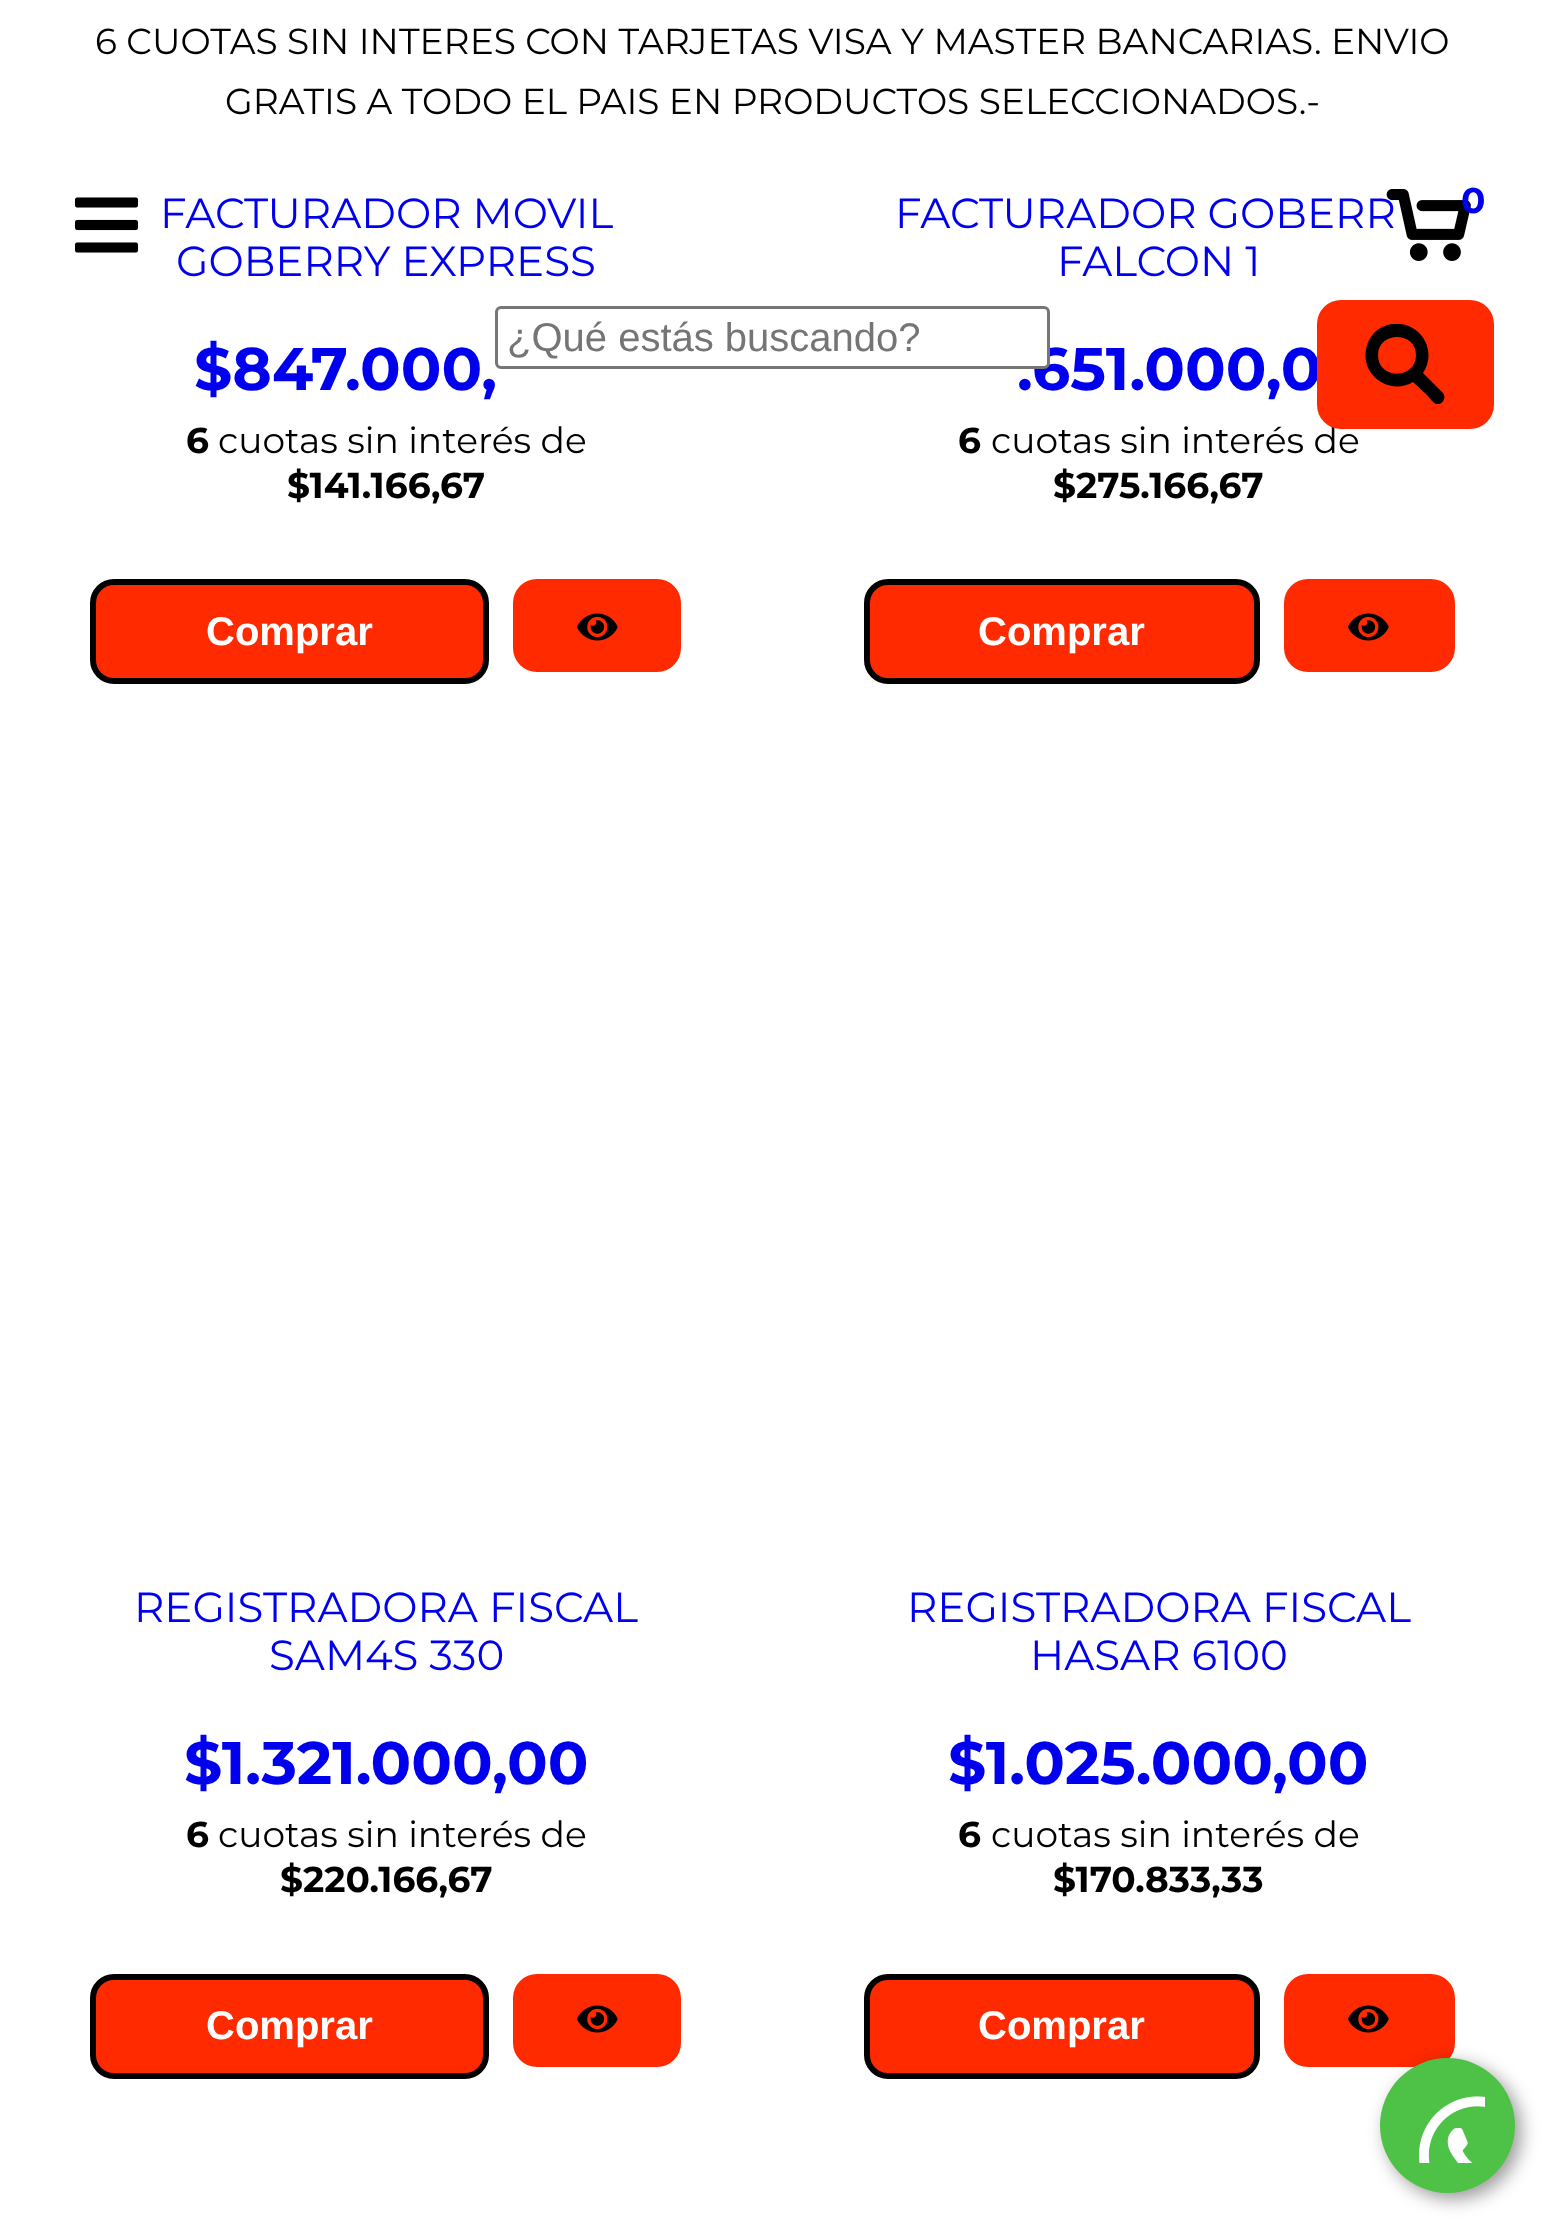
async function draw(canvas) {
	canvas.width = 1545;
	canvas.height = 2221;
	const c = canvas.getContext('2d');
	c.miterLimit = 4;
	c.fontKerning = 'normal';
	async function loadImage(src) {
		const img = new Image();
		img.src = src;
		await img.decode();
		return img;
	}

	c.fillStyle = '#fff';
	c.fillRect(0, 0, 1545, 2221);
	c.font = '36px Montserrat';
	c.fillStyle = '#000';
	c.fillText('6 CUOTAS SIN INTERES CON TARJETAS VISA Y MASTER BANCARIAS. ENVIO', 95, 54);
	c.fillText('GRATIS A TODO EL PAIS EN PRODUCTOS SELECCIONADOS.-', 225, 114);
	c.drawImage(await loadImage('img1.png'), 75, 197, 63, 56);
	c.font = '42px Montserrat';
	c.fillStyle = '#00e';
	c.fillText('FACTURADOR GOBERR', 895, 228);
	c.drawImage(await loadImage('img2.png'), 1386, 189, 85, 72);
	c.font = 'bold 36px Montserrat';
	c.fillText('0', 1461, 213);
	c.font = 'bold 60px Montserrat';
	c.fillText('$847.000,', 194, 390);
	c.fillText('.651.000,0', 1017, 390);
	c.fillStyle = '#fff';
	c.beginPath();
	c.roundRect(496.5, 307.5, 552, 60, 4.5);
	c.fill();
	c.strokeStyle = '#767676';
	c.lineWidth = 3;
	c.stroke();
	c.font = '40px Liberation Sans';
	c.fillStyle = '#757575';
	c.fillText('¿Qué estás buscando?', 507, 351);
	c.font = '36px Montserrat';
	c.fillStyle = '#000';
	c.fillText('cuotas sin interés de', 991, 453);
	c.fillStyle = '#ff2a00';
	c.beginPath();
	c.roundRect(1317, 300, 177, 129, 24);
	c.fill();
	c.save();
	c.beginPath();
	c.rect(1365, 324, 80, 80);
	c.clip();
	c.fillStyle = '#000';
	c.beginPath();
	c.moveTo(1443, 393);
	c.lineTo(1423, 373);
	c.bezierCurveTo(1432, 360, 1430, 342, 1417, 331);
	c.bezierCurveTo(1405, 321, 1387, 321, 1375, 332);
	c.bezierCurveTo(1364, 343, 1362, 362, 1372, 374);
	c.bezierCurveTo(1382, 387, 1400, 390, 1413, 382);
	c.lineTo(1427, 395);
	c.bezierCurveTo(1430, 398, 1432, 402, 1436, 404);
	c.bezierCurveTo(1442, 406, 1447, 398, 1443, 393);
	c.closePath();
	c.moveTo(1378, 355);
	c.bezierCurveTo(1378, 331, 1416, 331, 1416, 355);
	c.bezierCurveTo(1416, 380, 1378, 380, 1378, 355);
	c.closePath();
	c.fill();
	c.restore();
	c.font = '42px Montserrat';
	c.fillStyle = '#00e';
	c.fillText('FACTURADOR MOVIL', 160, 228);
	c.fillText('GOBERRY EXPRESS', 176, 276);
	c.font = 'bold 36px Montserrat';
	c.fillStyle = '#000';
	c.fillText('6', 186, 453);
	c.font = '36px Montserrat';
	c.fillText('cuotas sin interés de', 218, 453);
	c.font = 'bold 36px Montserrat';
	c.fillText('$141.166,67', 287, 498);
	c.fillStyle = '#ff2a00';
	c.beginPath();
	c.roundRect(93, 582, 393, 99, 21);
	c.fill();
	c.strokeStyle = '#000';
	c.lineWidth = 6;
	c.stroke();
	c.font = 'bold 40px Liberation Sans';
	c.fillStyle = '#fff';
	c.fillText('Comprar', 206, 645);
	c.fillStyle = '#ff2a00';
	c.beginPath();
	c.roundRect(513, 579, 168, 93, 24);
	c.fill();
	c.drawImage(await loadImage('img3.png'), 577, 613, 41, 28);
	c.font = '42px Montserrat';
	c.fillStyle = '#00e';
	c.fillText('FALCON 1', 1057, 276);
	c.font = 'bold 36px Montserrat';
	c.fillStyle = '#000';
	c.fillText('6', 958, 453);
	c.fillText('$275.166,67', 1053, 498);
	c.fillStyle = '#ff2a00';
	c.beginPath();
	c.roundRect(867, 582, 390, 99, 21);
	c.fill();
	c.stroke();
	c.font = 'bold 40px Liberation Sans';
	c.fillStyle = '#fff';
	c.fillText('Comprar', 978, 645);
	c.fillStyle = '#ff2a00';
	c.beginPath();
	c.roundRect(1284, 579, 171, 93, 24);
	c.fill();
	c.drawImage(await loadImage('img3.png'), 1348, 613, 41, 28);
	c.font = '42px Montserrat';
	c.fillStyle = '#00e';
	c.fillText('REGISTRADORA FISCAL', 134, 1622);
	c.fillText('SAM4S 330', 269, 1670);
	c.font = 'bold 60px Montserrat';
	c.fillText('$1.321.000,00', 184, 1784);
	c.font = 'bold 36px Montserrat';
	c.fillStyle = '#000';
	c.fillText('6', 186, 1847);
	c.font = '36px Montserrat';
	c.fillText('cuotas sin interés de', 218, 1847);
	c.font = 'bold 36px Montserrat';
	c.fillText('$220.166,67', 280, 1892);
	c.fillStyle = '#ff2a00';
	c.beginPath();
	c.roundRect(93, 1977, 393, 99, 21);
	c.fill();
	c.stroke();
	c.font = 'bold 40px Liberation Sans';
	c.fillStyle = '#fff';
	c.fillText('Comprar', 206, 2039);
	c.fillStyle = '#ff2a00';
	c.beginPath();
	c.roundRect(513, 1974, 168, 93, 24);
	c.fill();
	c.drawImage(await loadImage('img3.png'), 577, 2005, 41, 28);
	c.font = '42px Montserrat';
	c.fillStyle = '#00e';
	c.fillText('REGISTRADORA FISCAL', 907, 1622);
	c.fillText('HASAR 6100', 1030, 1670);
	c.font = 'bold 60px Montserrat';
	c.fillText('$1.025.000,00', 948, 1784);
	c.font = 'bold 36px Montserrat';
	c.fillStyle = '#000';
	c.fillText('6', 958, 1847);
	c.font = '36px Montserrat';
	c.fillText('cuotas sin interés de', 991, 1847);
	c.font = 'bold 36px Montserrat';
	c.fillText('$170.833,33', 1053, 1892);
	c.fillStyle = '#ff2a00';
	c.beginPath();
	c.roundRect(867, 1977, 390, 99, 21);
	c.fill();
	c.stroke();
	c.font = 'bold 40px Liberation Sans';
	c.fillStyle = '#fff';
	c.fillText('Comprar', 978, 2039);
	c.fillStyle = '#ff2a00';
	c.beginPath();
	c.roundRect(1284, 1974, 171, 93, 24);
	c.fill();
	c.drawImage(await loadImage('img3.png'), 1348, 2005, 41, 28);
	c.fillStyle = '#00000066';
	c.filter = 'blur(9px)';
	c.beginPath();
	c.roundRect(1386, 2064, 135, 135, 67.5);
	c.fill();
	c.filter = 'none';
	c.fillStyle = '#4dc247';
	c.beginPath();
	c.arc(1447.5, 2125.5, 67.5, 0, 2 * Math.PI);
	c.fill();
	c.drawImage(await loadImage('img4.png'), 1418, 2096, 67, 67);
}

draw(document.querySelector('canvas'));
